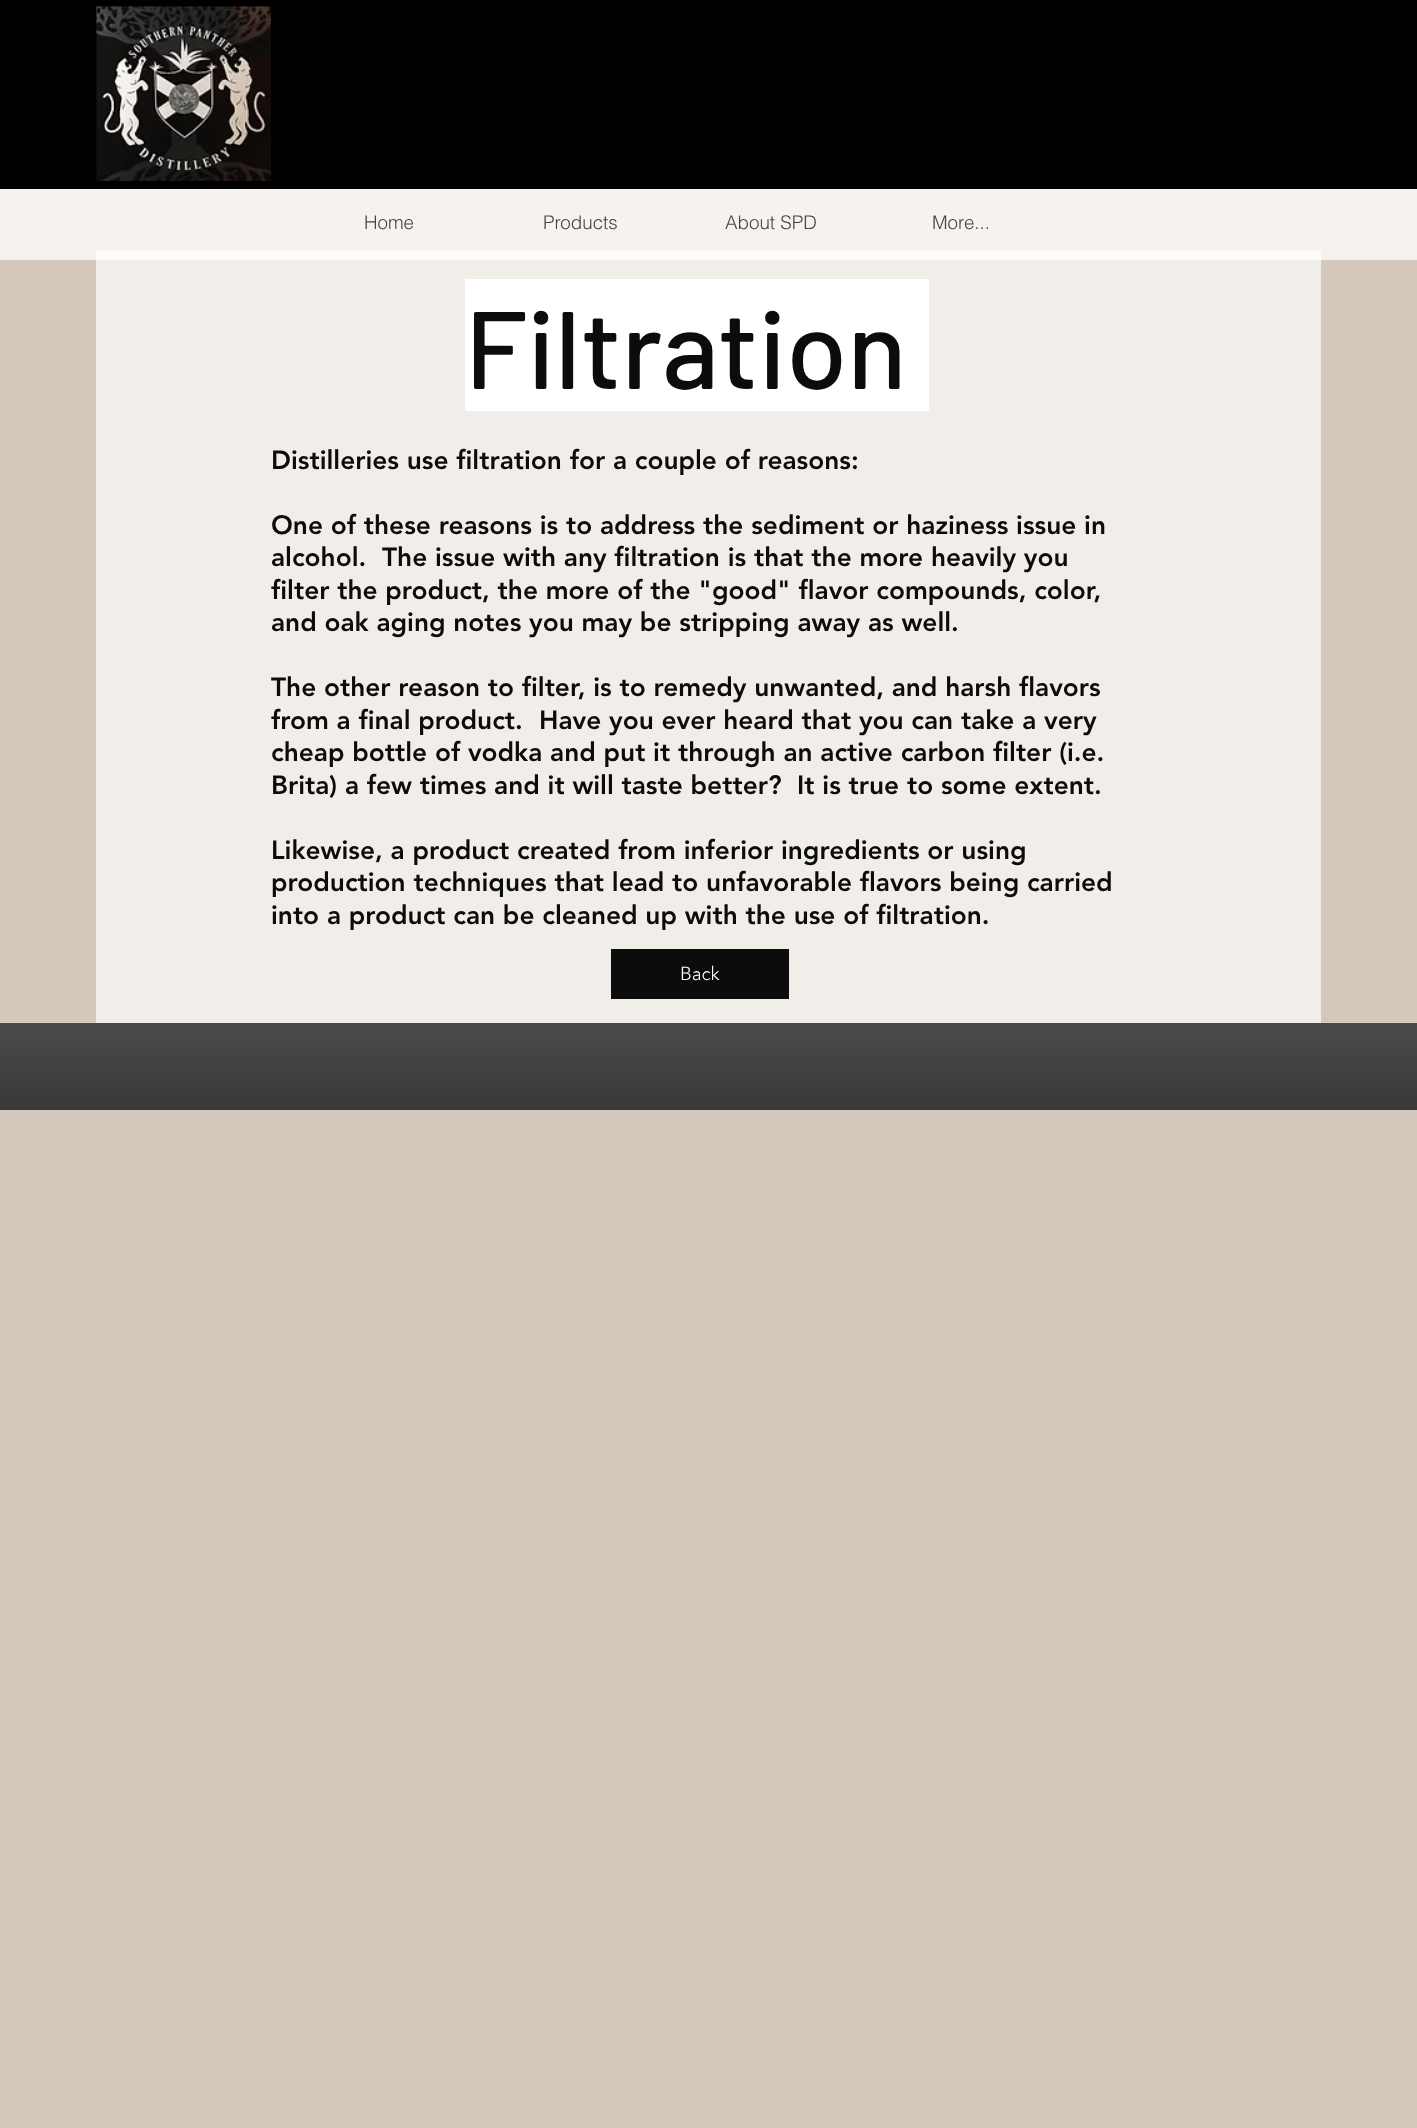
async function draw(canvas) {
	canvas.width = 1417;
	canvas.height = 2128;
	const c = canvas.getContext('2d');
	c.miterLimit = 4;
	c.fontKerning = 'normal';
	async function loadImage(src) {
		const img = new Image();
		img.src = src;
		await img.decode();
		return img;
	}

	c.fillStyle = '#d4c8bc';
	c.fillRect(0, 0, 1417, 2128);
	c.fillStyle = '#000';
	c.fillRect(0, 0, 1417, 189);
	c.drawImage(await loadImage('img1.png'), 96, 6, 175, 175);
	c.fillStyle = '#f7f2ef';
	c.fillRect(0, 189, 1417, 71);
	c.fillStyle = '#fcfbfa';
	c.fillRect(96, 250, 1225, 10);
	c.font = '300 18.75px helvetica';
	c.fillStyle = '#444';
	for (const [text, x, y] of [
		['Home', 364, 229],
		['Products', 543, 229],
		['About SPD', 725, 229],
		['More...', 932, 229],
	]) {
		c.fillText(text, x, y);
	}
	c.fillStyle = '#f1ede9';
	c.fillRect(96, 260, 1225, 763);
	c.fillStyle = '#fff';
	c.fillRect(465, 279, 464, 132);
	c.font = '500 110px Barlow';
	c.fillStyle = '#0c0c0c';
	c.fillText('Filtration', 465, 389);
	c.font = '900 26.25px "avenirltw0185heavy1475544"';
	for (const [text, x, y] of [
		['Distilleries use filtration for a couple of reasons:', 271, 469],
		['One of these reasons is to address the sediment or haziness issue in', 271, 534],
		['alcohol.', 271, 566],
		['The issue with any filtration is that the more heavily you', 382, 566],
		['filter the product, the more of the "good" flavor compounds, color,', 271, 599],
		['and oak aging notes you may be stripping away as well.', 271, 631],
		['The other reason to filter, is to remedy unwanted, and harsh flavors', 271, 696],
		['from a final product.', 271, 729],
		['Have you ever heard that you can take a very', 539, 729],
		['cheap bottle of vodka and put it through an active carbon filter (i.e.', 271, 761],
		['Brita) a few times and it will taste better?  It is true to some extent.', 271, 794],
		['Likewise, a product created from inferior ingredients or using', 271, 859],
		['production techniques that lead to unfavorable flavors being carried', 271, 891],
		['into a product can be cleaned up with the use of filtration.', 271, 924],
	]) {
		c.fillText(text, x, y);
	}
	c.fillRect(611, 949, 178, 50);
	c.font = '300 18.75px "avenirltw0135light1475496"';
	c.fillStyle = '#fff';
	c.fillText('Back', 680, 980);
	c.fillStyle = '#0c0c0c';
	c.fillRect(0, 1023, 1417, 87);
	c.drawImage(await loadImage('img2.png'), 0, 1022, 1417, 88);
}

draw(document.querySelector('canvas'));
